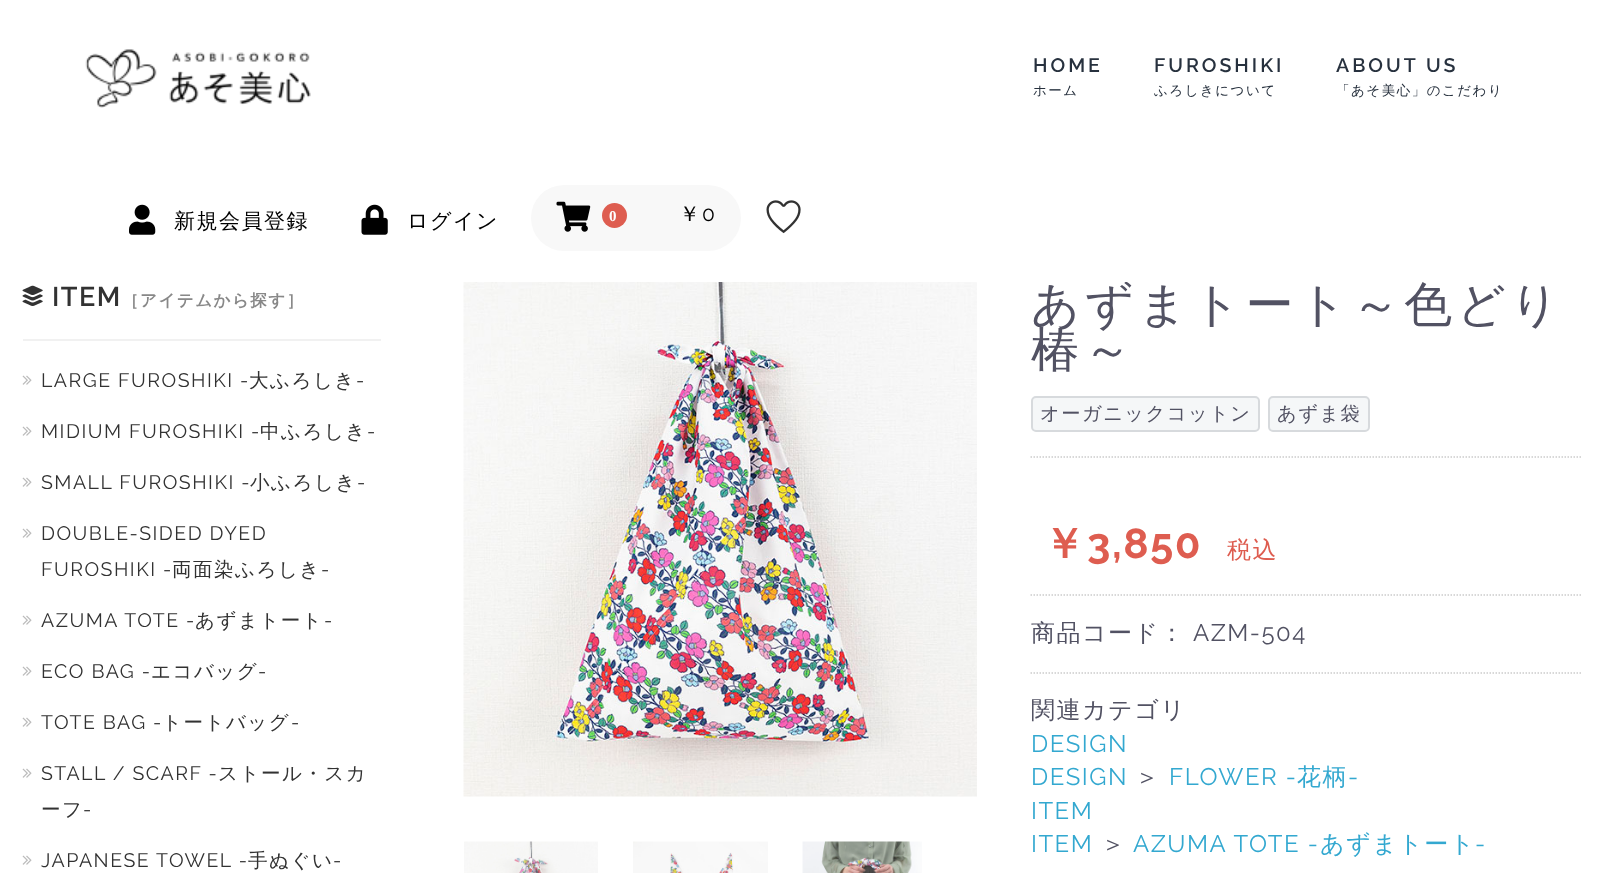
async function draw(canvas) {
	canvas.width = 1611;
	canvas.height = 873;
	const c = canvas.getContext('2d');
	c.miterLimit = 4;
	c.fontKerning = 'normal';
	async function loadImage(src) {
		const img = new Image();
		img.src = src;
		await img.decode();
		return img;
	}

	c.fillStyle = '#fff';
	c.fillRect(0, 0, 1611, 873);
	c.letterSpacing = '4.5px';
	c.font = '500 48px WenQuanYi Zen Hei';
	c.fillStyle = '#525263';
	c.fillText('あずまトート～色どり', 1031, 321);
	c.fillStyle = '#fff';
	c.fillRect(1125, 281, 2, 1);
	c.drawImage(await loadImage('img1.png'), 85, 49, 226, 59);
	c.letterSpacing = '3px';
	c.font = '600 19.5px Raleway';
	c.fillStyle = '#27313e';
	c.fillText('HOME', 1033, 72);
	c.letterSpacing = '1.5px';
	c.font = '500 13.5px WenQuanYi Zen Hei';
	c.fillText('ホーム', 1033, 95);
	c.letterSpacing = '3px';
	c.font = '600 19.5px Raleway';
	c.fillText('FUROSHIKI', 1154, 72);
	c.letterSpacing = '1.5px';
	c.font = '500 13.5px WenQuanYi Zen Hei';
	c.fillText('ふろしきについて', 1154, 95);
	c.letterSpacing = '3px';
	c.font = '600 19.5px Raleway';
	c.fillText('ABOUT US', 1336, 72);
	c.letterSpacing = '1.5px';
	c.font = '500 13.5px WenQuanYi Zen Hei';
	c.fillText('「あそ美心」のこだわり', 1336, 95);
	c.drawImage(await loadImage('img2.png'), 129, 204, 27, 31);
	c.font = '500 21px WenQuanYi Zen Hei';
	c.fillStyle = '#000';
	c.fillText('新規会員登録', 174, 228);
	c.drawImage(await loadImage('img3.png'), 361, 204, 27, 31);
	c.fillText('ログイン', 407, 228);
	c.fillStyle = '#f8f8f8';
	c.beginPath();
	c.roundRect(531, 185, 210, 66, 33);
	c.fill();
	c.drawImage(await loadImage('img4.png'), 556, 201, 35, 31);
	c.fillStyle = '#de5d50';
	c.beginPath();
	c.arc(614.5, 215.5, 12.5, 0, 2 * Math.PI);
	c.fill();
	c.font = 'bold 15px Liberation Serif';
	c.fillStyle = '#fff';
	c.fillText('0', 609, 221);
	c.font = '500 21px WenQuanYi Zen Hei';
	c.fillStyle = '#000';
	c.fillText('￥', 679, 221);
	c.font = '21px Raleway';
	c.fillText('0', 702, 221);
	c.drawImage(await loadImage('img5.png'), 766, 200, 35, 34);
	c.drawImage(await loadImage('img6.png'), 22, 285, 21, 21);
	c.font = '600 27px Raleway';
	c.fillStyle = '#323232';
	c.fillText('ITEM', 52, 306);
	c.font = 'bold 16.5px WenQuanYi Zen Hei';
	c.fillStyle = '#888';
	c.fillText('［アイテムから探す］', 122, 306);
	c.fillStyle = '#f1f1f1';
	c.fillRect(23, 339, 358, 2);
	c.drawImage(await loadImage('img7.png'), 22, 375, 10, 10);
	c.font = '19.5px Raleway';
	c.fillStyle = '#323232';
	c.fillText('LARGE FUROSHIKI -', 41, 387);
	c.font = '500 19.5px WenQuanYi Zen Hei';
	c.fillText('大ふろしき', 249, 387);
	c.font = '19.5px Raleway';
	c.fillText('-', 356, 387);
	c.drawImage(await loadImage('img7.png'), 22, 426, 10, 10);
	c.fillText('MIDIUM FUROSHIKI -', 41, 438);
	c.font = '500 19.5px WenQuanYi Zen Hei';
	c.fillText('中ふろしき', 260, 438);
	c.font = '19.5px Raleway';
	c.fillText('-', 367, 438);
	c.drawImage(await loadImage('img7.png'), 22, 477, 10, 10);
	c.fillText('SMALL FUROSHIKI -', 41, 489);
	c.font = '500 19.5px WenQuanYi Zen Hei';
	c.fillText('小ふろしき', 250, 489);
	c.font = '19.5px Raleway';
	c.fillText('-', 357, 489);
	c.drawImage(await loadImage('img7.png'), 22, 528, 10, 10);
	c.fillText('DOUBLE-SIDED DYED', 41, 540);
	c.fillText('FUROSHIKI -', 41, 576);
	c.font = '500 19.5px WenQuanYi Zen Hei';
	c.fillText('両面染ふろしき', 172, 576);
	c.font = '19.5px Raleway';
	c.fillText('-', 321, 576);
	c.drawImage(await loadImage('img7.png'), 22, 615, 10, 10);
	c.fillText('AZUMA TOTE -', 41, 627);
	c.font = '500 19.5px WenQuanYi Zen Hei';
	c.fillText('あずまトート', 195, 627);
	c.font = '19.5px Raleway';
	c.fillText('-', 324, 627);
	c.drawImage(await loadImage('img7.png'), 22, 666, 10, 10);
	c.fillText('ECO BAG -', 41, 678);
	c.font = '500 19.5px WenQuanYi Zen Hei';
	c.fillText('エコバッグ', 151, 678);
	c.font = '19.5px Raleway';
	c.fillText('-', 258, 678);
	c.drawImage(await loadImage('img7.png'), 22, 717, 10, 10);
	c.fillText('TOTE BAG -', 41, 729);
	c.font = '500 19.5px WenQuanYi Zen Hei';
	c.fillText('トートバッグ', 162, 729);
	c.font = '19.5px Raleway';
	c.fillText('-', 291, 729);
	c.drawImage(await loadImage('img7.png'), 22, 768, 10, 10);
	c.fillText('STALL / SCARF -', 41, 780);
	c.font = '500 19.5px WenQuanYi Zen Hei';
	c.fillText('ストール・スカ', 218, 780);
	c.fillText('ーフ', 41, 816);
	c.font = '19.5px Raleway';
	c.fillText('-', 83, 816);
	c.drawImage(await loadImage('img7.png'), 22, 855, 10, 10);
	c.fillText('JAPANESE TOWEL -', 41, 867);
	c.font = '500 19.5px WenQuanYi Zen Hei';
	c.fillText('手ぬぐい', 248, 867);
	c.font = '19.5px Raleway';
	c.fillText('-', 333, 867);
	c.drawImage(await loadImage('img8.png'), 463, 282, 514, 515);
	c.drawImage(await loadImage('img9.png'), 464, 841, 134, 32);
	c.drawImage(await loadImage('img10.png'), 633, 841, 135, 32);
	c.drawImage(await loadImage('img11.png'), 802, 841, 120, 32);
	c.letterSpacing = '4.5px';
	c.font = '500 48px WenQuanYi Zen Hei';
	c.fillStyle = '#525263';
	c.fillText('椿～', 1031, 366);
	c.beginPath();
	c.moveTo(1030.5, 457);
	c.lineTo(1581, 457);
	c.strokeStyle = '#ccc';
	c.lineWidth = 1.5;
	c.setLineDash([1.5, 1.5]);
	c.stroke();
	c.fillStyle = '#f5f7f8';
	c.beginPath();
	c.roundRect(1032, 397, 227, 34, 4);
	c.fill();
	c.strokeStyle = '#d7dadd';
	c.lineWidth = 2;
	c.setLineDash([]);
	c.stroke();
	c.letterSpacing = '1.5px';
	c.font = '500 19.25px WenQuanYi Zen Hei';
	c.fillStyle = '#525263';
	c.fillText('オーガニックコットン', 1040, 420);
	c.fillStyle = '#f5f7f8';
	c.beginPath();
	c.roundRect(1269, 397, 100, 34, 4);
	c.fill();
	c.stroke();
	c.fillStyle = '#525263';
	c.fillText('あずま袋', 1277, 420);
	c.beginPath();
	c.moveTo(1030.5, 595);
	c.lineTo(1581, 595);
	c.strokeStyle = '#ccc';
	c.lineWidth = 1.5;
	c.setLineDash([1.5, 1.5]);
	c.stroke();
	c.font = 'bold 42px WenQuanYi Zen Hei';
	c.fillStyle = '#de5d50';
	c.fillText('￥', 1043, 558);
	c.font = 'bold 42px Raleway';
	c.fillText('3,850', 1087, 558);
	c.font = '500 24px WenQuanYi Zen Hei';
	c.fillText('税込', 1227, 558);
	c.beginPath();
	c.moveTo(1030.5, 673);
	c.lineTo(1581, 673);
	c.stroke();
	c.fillStyle = '#525263';
	c.fillText('商品コード：', 1031, 641);
	c.font = '24px Raleway';
	c.fillText('AZM-504', 1193, 641);
	c.font = '500 24px WenQuanYi Zen Hei';
	c.fillText('関連カテゴリ', 1031, 718);
	c.font = '24px Raleway';
	c.fillStyle = '#33a8d0';
	c.fillText('DESIGN', 1031, 752);
	c.fillText('DESIGN', 1031, 785);
	c.font = '500 24px WenQuanYi Zen Hei';
	c.fillStyle = '#525263';
	c.fillText('＞', 1135, 785);
	c.font = '24px Raleway';
	c.fillStyle = '#33a8d0';
	c.fillText('FLOWER -', 1169, 785);
	c.font = '500 24px WenQuanYi Zen Hei';
	c.fillText('花柄', 1297, 785);
	c.font = '24px Raleway';
	for (const [text, x, y] of [
		['-', 1348, 785],
		['ITEM', 1031, 819],
		['ITEM', 1031, 852],
	]) {
		c.fillText(text, x, y);
	}
	c.font = '500 24px WenQuanYi Zen Hei';
	c.fillStyle = '#525263';
	c.fillText('＞', 1101, 852);
	c.font = '24px Raleway';
	c.fillStyle = '#33a8d0';
	c.fillText('AZUMA TOTE -', 1133, 852);
	c.font = '500 24px WenQuanYi Zen Hei';
	c.fillText('あずまトート', 1320, 852);
	c.font = '24px Raleway';
	c.fillText('-', 1475, 852);
}

draw(document.querySelector('canvas'));
